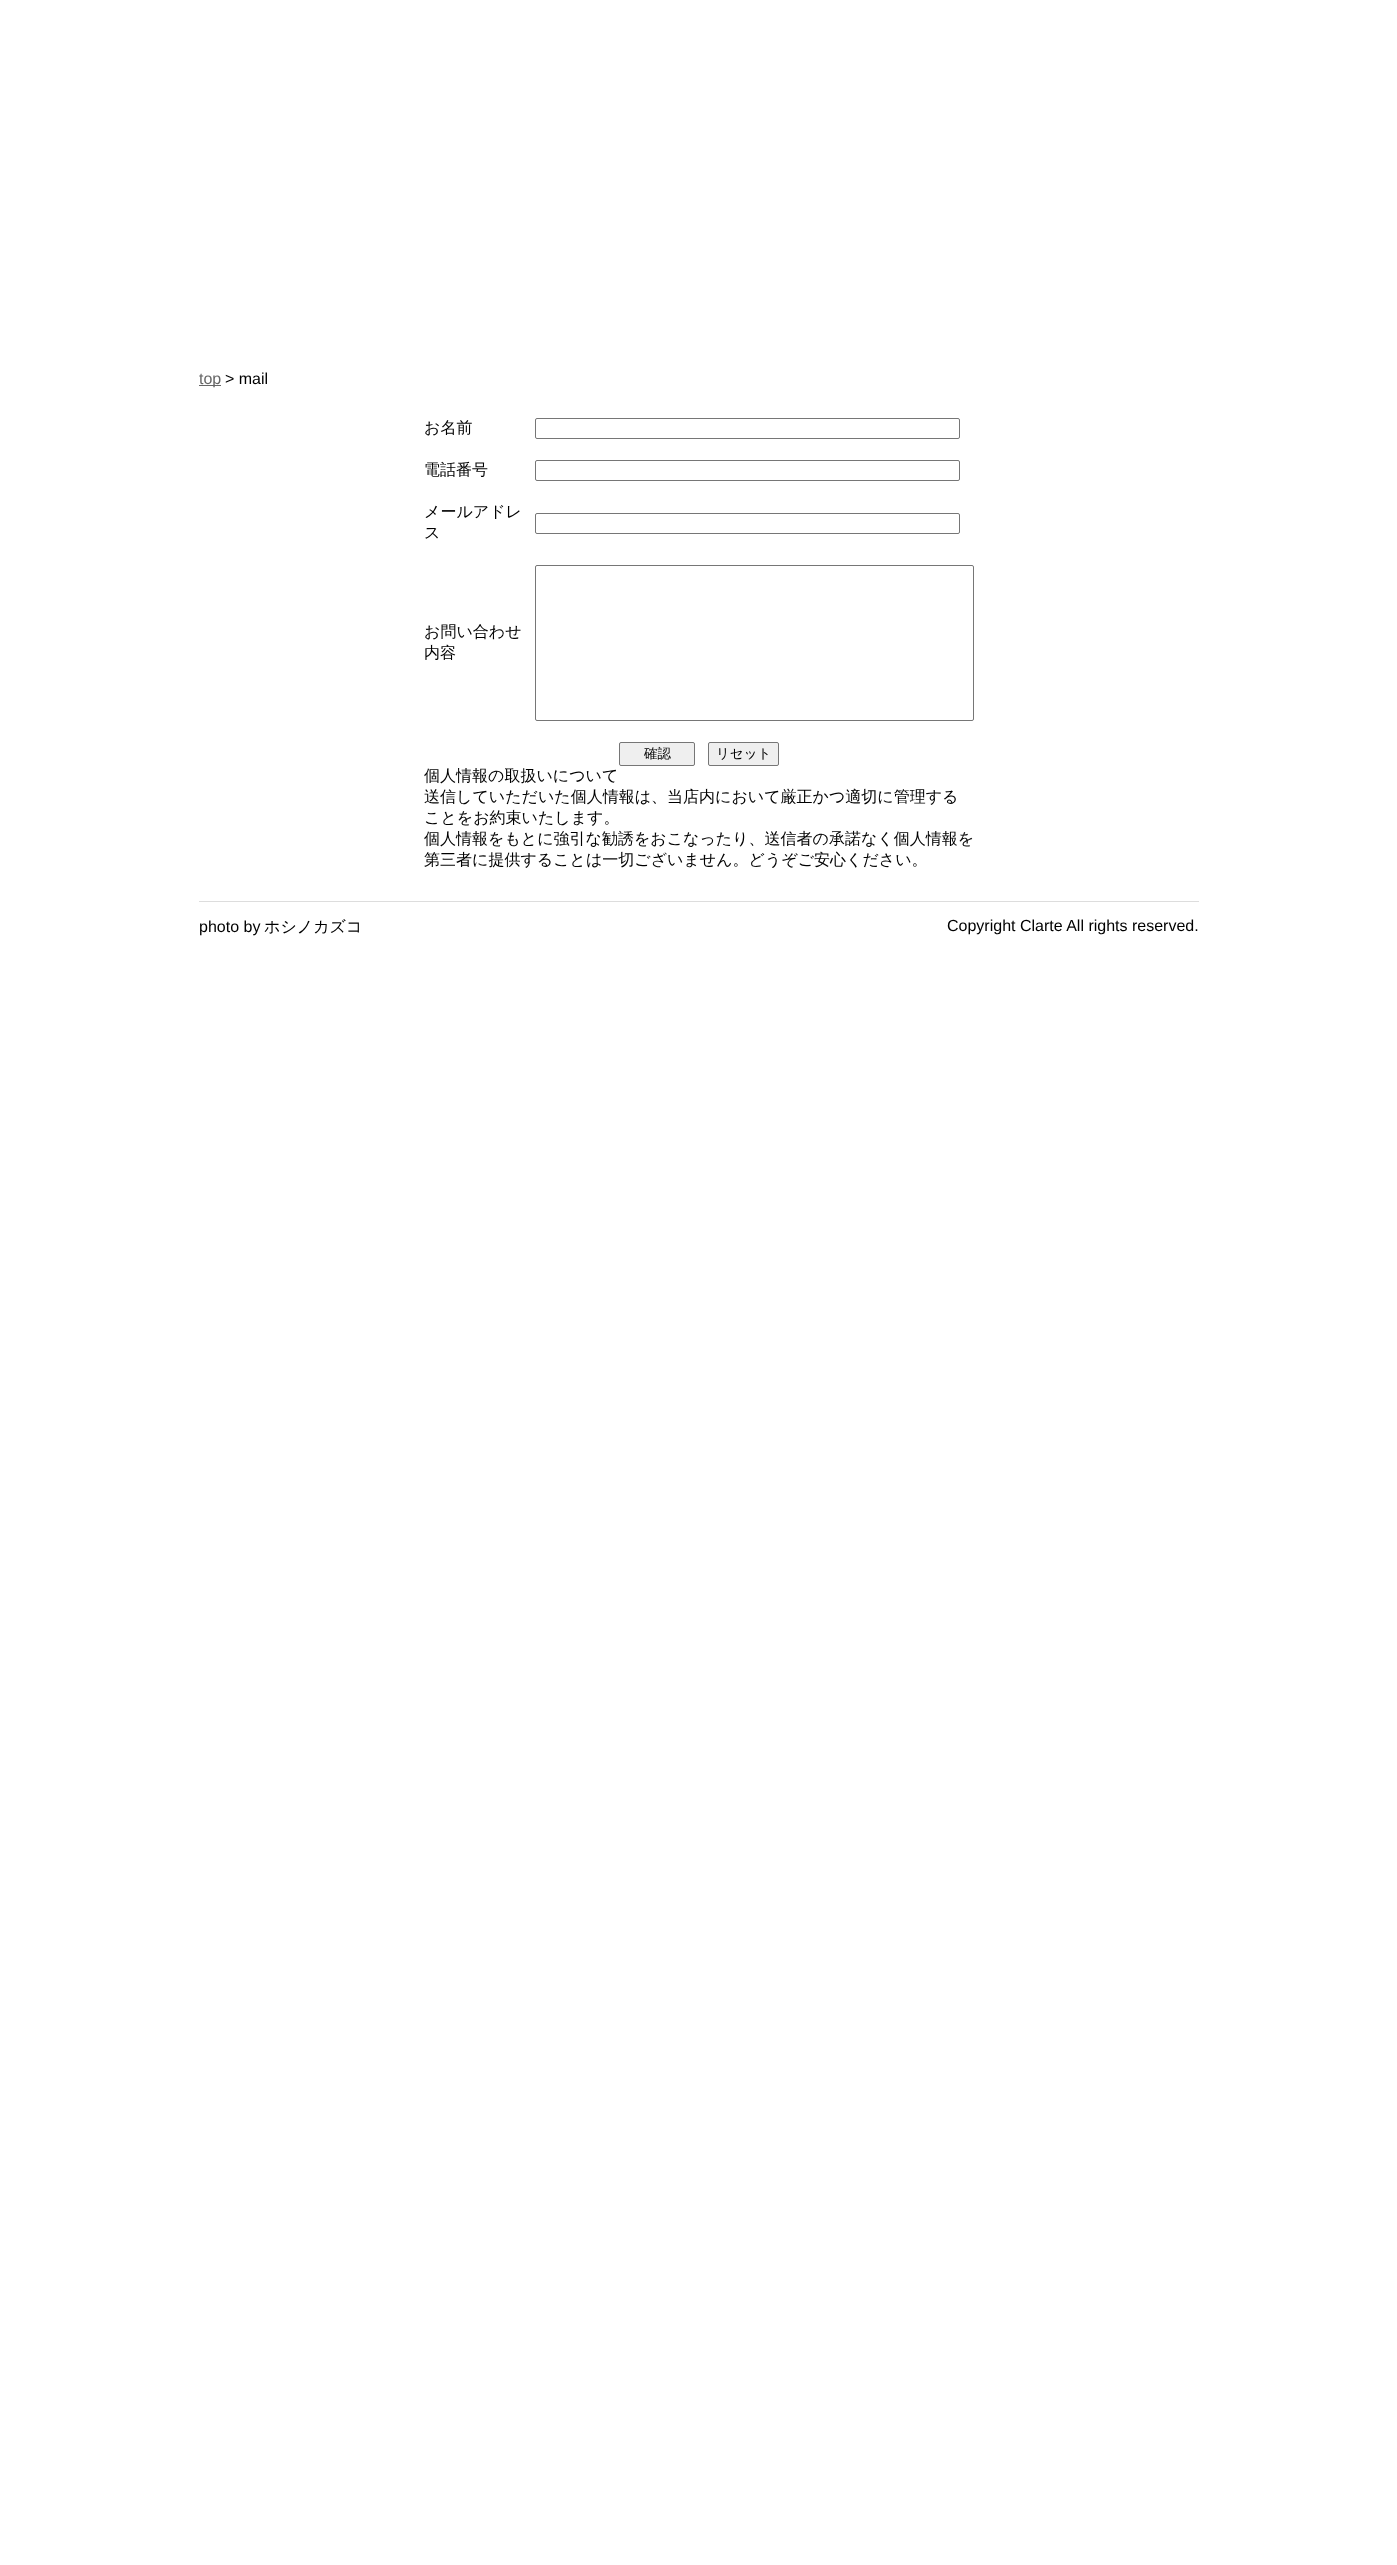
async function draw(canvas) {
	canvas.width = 1397;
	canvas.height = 2565;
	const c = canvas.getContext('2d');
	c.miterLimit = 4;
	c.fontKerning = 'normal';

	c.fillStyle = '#fff';
	c.fillRect(0, 0, 1397, 2565);
	c.fillStyle = '#666';
	c.fillRect(199, 385, 22, 1);
	c.font = '16px Liberation Sans';
	c.fillText('top', 199, 384);
	c.fillStyle = '#000';
	c.fillText('> mail', 225, 384);
	c.font = '500 16px WenQuanYi Zen Hei';
	c.fillText('お名前', 424, 433);
	c.beginPath();
	c.roundRect(535.5, 418.5, 424, 20, 1.5);
	c.strokeStyle = '#767676';
	c.stroke();
	c.fillText('電話番号', 424, 475);
	c.beginPath();
	c.roundRect(535.5, 460.5, 424, 20, 1.5);
	c.stroke();
	c.fillText('メールアドレ', 424, 517);
	c.fillText('ス', 424, 538);
	c.beginPath();
	c.roundRect(535.5, 513.5, 424, 20, 1.5);
	c.stroke();
	c.fillText('お問い合わせ', 424, 637);
	c.fillText('内容', 424, 658);
	c.beginPath();
	c.roundRect(535.5, 565.5, 438, 155, 1.5);
	c.stroke();
	c.fillStyle = '#efefef';
	c.beginPath();
	c.roundRect(619.5, 742.5, 75, 23, 1.5);
	c.fill();
	c.stroke();
	c.font = '500 13.5px WenQuanYi Zen Hei';
	c.fillStyle = '#000';
	c.fillText('確認', 644, 758);
	c.fillStyle = '#efefef';
	c.beginPath();
	c.roundRect(708.5, 742.5, 70, 23, 1.5);
	c.fill();
	c.stroke();
	c.fillStyle = '#000';
	c.fillText('リセット', 716, 758);
	c.font = '500 16px WenQuanYi Zen Hei';
	for (const [text, x, y] of [
		['個人情報の取扱いについて', 424, 781],
		['送信していただいた個人情報は、当店内において厳正かつ適切に管理する', 424, 802],
		['ことをお約束いたします。', 424, 823],
		['個人情報をもとに強引な勧誘をおこなったり、送信者の承諾なく個人情報を', 424, 844],
		['第三者に提供することは一切ございません。どうぞご安心ください。', 424, 865],
	]) {
		c.fillText(text, x, y);
	}
	c.fillStyle = '#ddd';
	c.fillRect(199, 901, 1000, 1);
	c.font = '16px Liberation Sans';
	c.fillStyle = '#000';
	c.fillText('photo by', 199, 932);
	c.font = '500 16px WenQuanYi Zen Hei';
	c.fillText('ホシノカズコ', 264, 932);
	c.font = '16px Liberation Sans';
	c.fillText('Copyright Clarte All rights reserved.', 947, 931);
}

draw(document.querySelector('canvas'));
